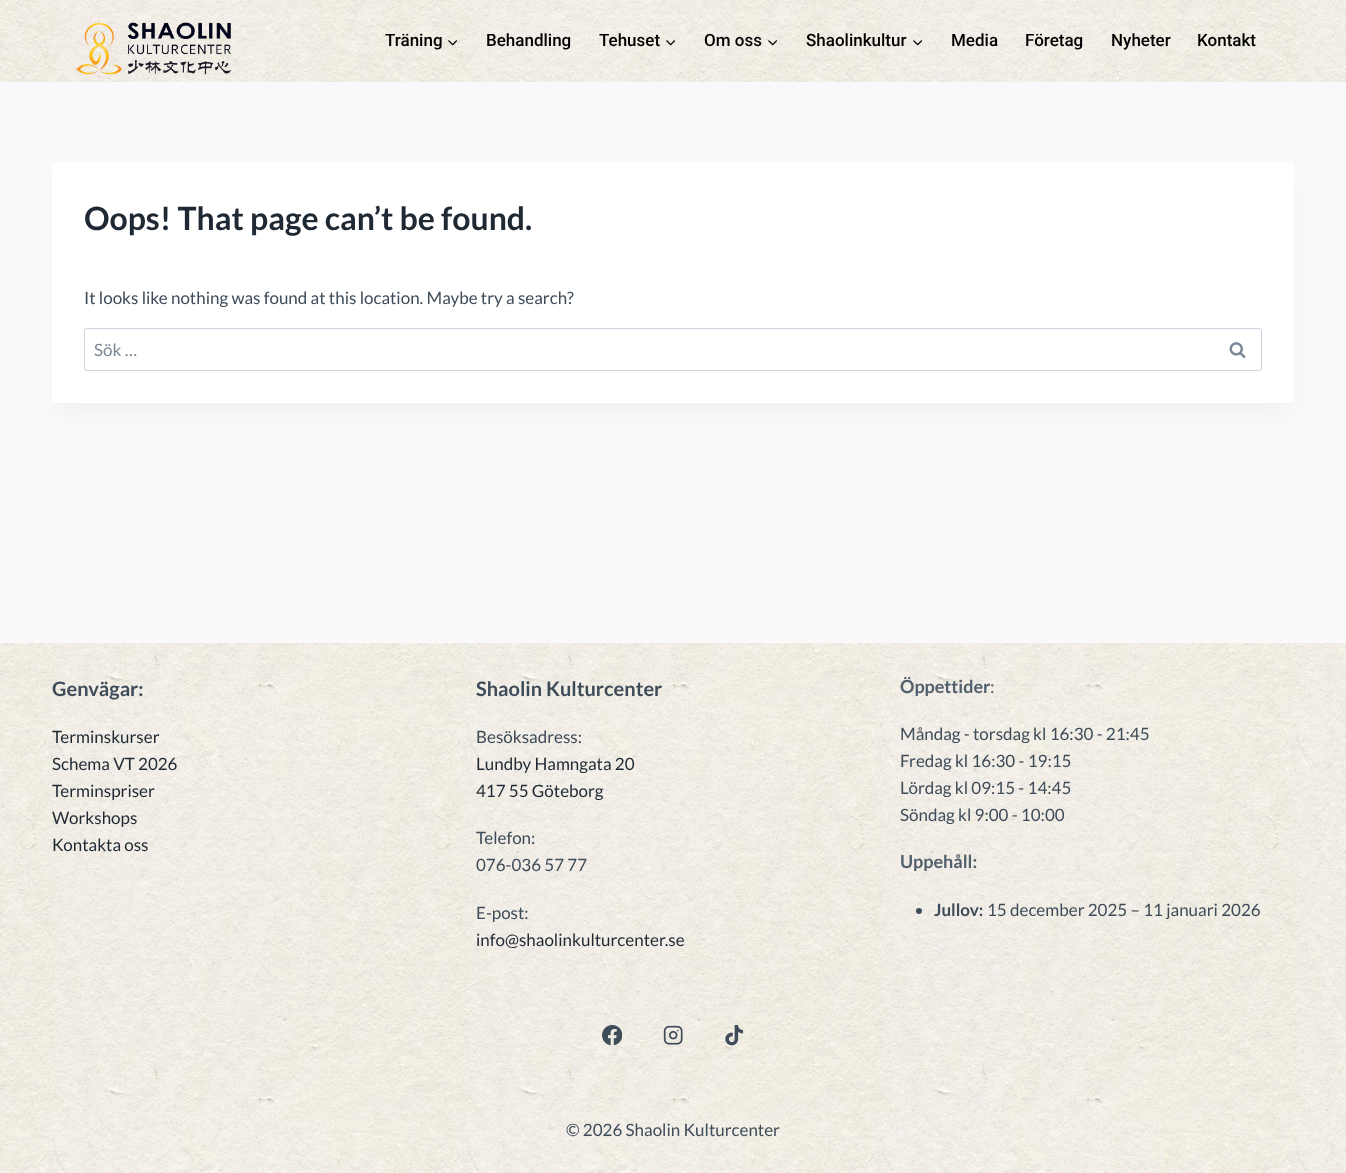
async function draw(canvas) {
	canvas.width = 1346;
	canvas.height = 1173;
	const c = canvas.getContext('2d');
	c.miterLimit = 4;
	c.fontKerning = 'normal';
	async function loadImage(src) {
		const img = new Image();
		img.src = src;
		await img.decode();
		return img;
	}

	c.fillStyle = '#f9f9fb';
	c.fillRect(0, 0, 1346, 1173);
	c.drawImage(await loadImage('img1.png'), 0, 0, 1346, 82);
	c.drawImage(await loadImage('img2.png'), 76, 22, 155, 53);
	c.font = '500 17px Roboto';
	c.fillStyle = '#000';
	c.fillText('Träning', 385, 46);
	c.drawImage(await loadImage('img3.png'), 448, 40, 10, 6);
	c.fillText('Behandling', 486, 46);
	c.fillText('Tehuset', 599, 46);
	c.drawImage(await loadImage('img4.png'), 666, 40, 10, 6);
	c.fillText('Om oss', 704, 46);
	c.drawImage(await loadImage('img5.png'), 768, 40, 10, 6);
	c.fillText('Shaolinkultur', 806, 46);
	c.drawImage(await loadImage('img6.png'), 913, 40, 10, 6);
	for (const [text, x, y] of [
		['Media', 951, 46],
		['Företag', 1025, 46],
		['Nyheter', 1111, 46],
		['Kontakt', 1197, 46],
	]) {
		c.fillText(text, x, y);
	}
	c.fillStyle = '#0000000d';
	c.filter = 'blur(12.5px)';
	c.beginPath();
	c.rect(62, 187, 1222, 221);
	c.fill();
	c.filter = 'none';
	c.fillStyle = '#fff';
	c.beginPath();
	c.roundRect(52, 162, 1242, 241, 4);
	c.fill();
	c.font = 'bold 32px Lato';
	c.fillStyle = '#1f2933';
	c.fillText('Oops! That page can’t be found.', 84, 230);
	c.font = '17px Lato';
	c.fillStyle = '#3e4c59';
	c.fillText('It looks like nothing was found at this location. Maybe try a search?', 84, 304);
	c.beginPath();
	c.roundRect(84.5, 328.5, 1177, 42, 2.5);
	c.strokeStyle = '#cbd5e0';
	c.stroke();
	c.fillStyle = '#7b8794';
	c.fillText('Sök …', 94, 356);
	c.drawImage(await loadImage('img7.png'), 1229, 342, 17, 16);
	c.drawImage(await loadImage('img8.png'), 0, 643, 1346, 530);
	c.font = 'bold 20px Lato';
	c.fillStyle = '#3e4c59';
	c.fillText('Genvägar:', 52, 696);
	c.font = '17px Lato';
	c.fillStyle = '#1f2933';
	for (const [text, x, y] of [
		['Terminskurser', 52, 743],
		['Schema VT 2026', 52, 770],
		['Terminspriser', 52, 797],
		['Workshops', 52, 824],
		['Kontakta oss', 52, 851],
	]) {
		c.fillText(text, x, y);
	}
	c.font = 'bold 20px Lato';
	c.fillStyle = '#3e4c59';
	c.fillText('Shaolin Kulturcenter', 476, 696);
	c.font = '17px Lato';
	c.fillText('Besöksadress:', 476, 743);
	c.fillStyle = '#1f2933';
	c.fillText('Lundby Hamngata 20', 476, 770);
	c.fillText('417 55 Göteborg', 476, 797);
	c.fillStyle = '#3e4c59';
	for (const [text, x, y] of [
		['Telefon:', 476, 844],
		['076-036 57 77', 476, 871],
		['E-post:', 476, 919],
	]) {
		c.fillText(text, x, y);
	}
	c.fillStyle = '#1f2933';
	c.fillText('info@shaolinkulturcenter.se', 476, 946);
	c.font = 'bold 18px Lato';
	c.fillStyle = '#52606d';
	c.fillText('Öppettider', 900, 693);
	c.font = '18px Lato';
	c.fillText(':', 990, 693);
	c.font = '17px Lato';
	c.fillStyle = '#3e4c59';
	for (const [text, x, y] of [
		['Måndag - torsdag kl 16:30 - 21:45', 900, 740],
		['Fredag kl 16:30 - 19:15', 900, 767],
		['Lördag kl 09:15 - 14:45', 900, 794],
		['Söndag kl 9:00 - 10:00', 900, 821],
	]) {
		c.fillText(text, x, y);
	}
	c.font = 'bold 18px Lato';
	c.fillStyle = '#52606d';
	c.fillText('Uppehåll:', 900, 868);
	c.fillStyle = '#3e4c59';
	c.beginPath();
	c.arc(919, 911, 3, 0, 2 * Math.PI);
	c.fill();
	c.font = 'bold 17px Lato';
	c.fillText('Jullov:', 934, 916);
	c.font = '17px Lato';
	c.fillText('15 december 2025 – 11 januari 2026', 987, 916);
	c.drawImage(await loadImage('img9.png'), 602, 1025, 20, 21);
	c.drawImage(await loadImage('img10.png'), 663, 1025, 20, 20);
	c.drawImage(await loadImage('img11.png'), 725, 1025, 19, 21);
	c.fillText('© 2026 Shaolin Kulturcenter', 566, 1136);
}

draw(document.querySelector('canvas'));
